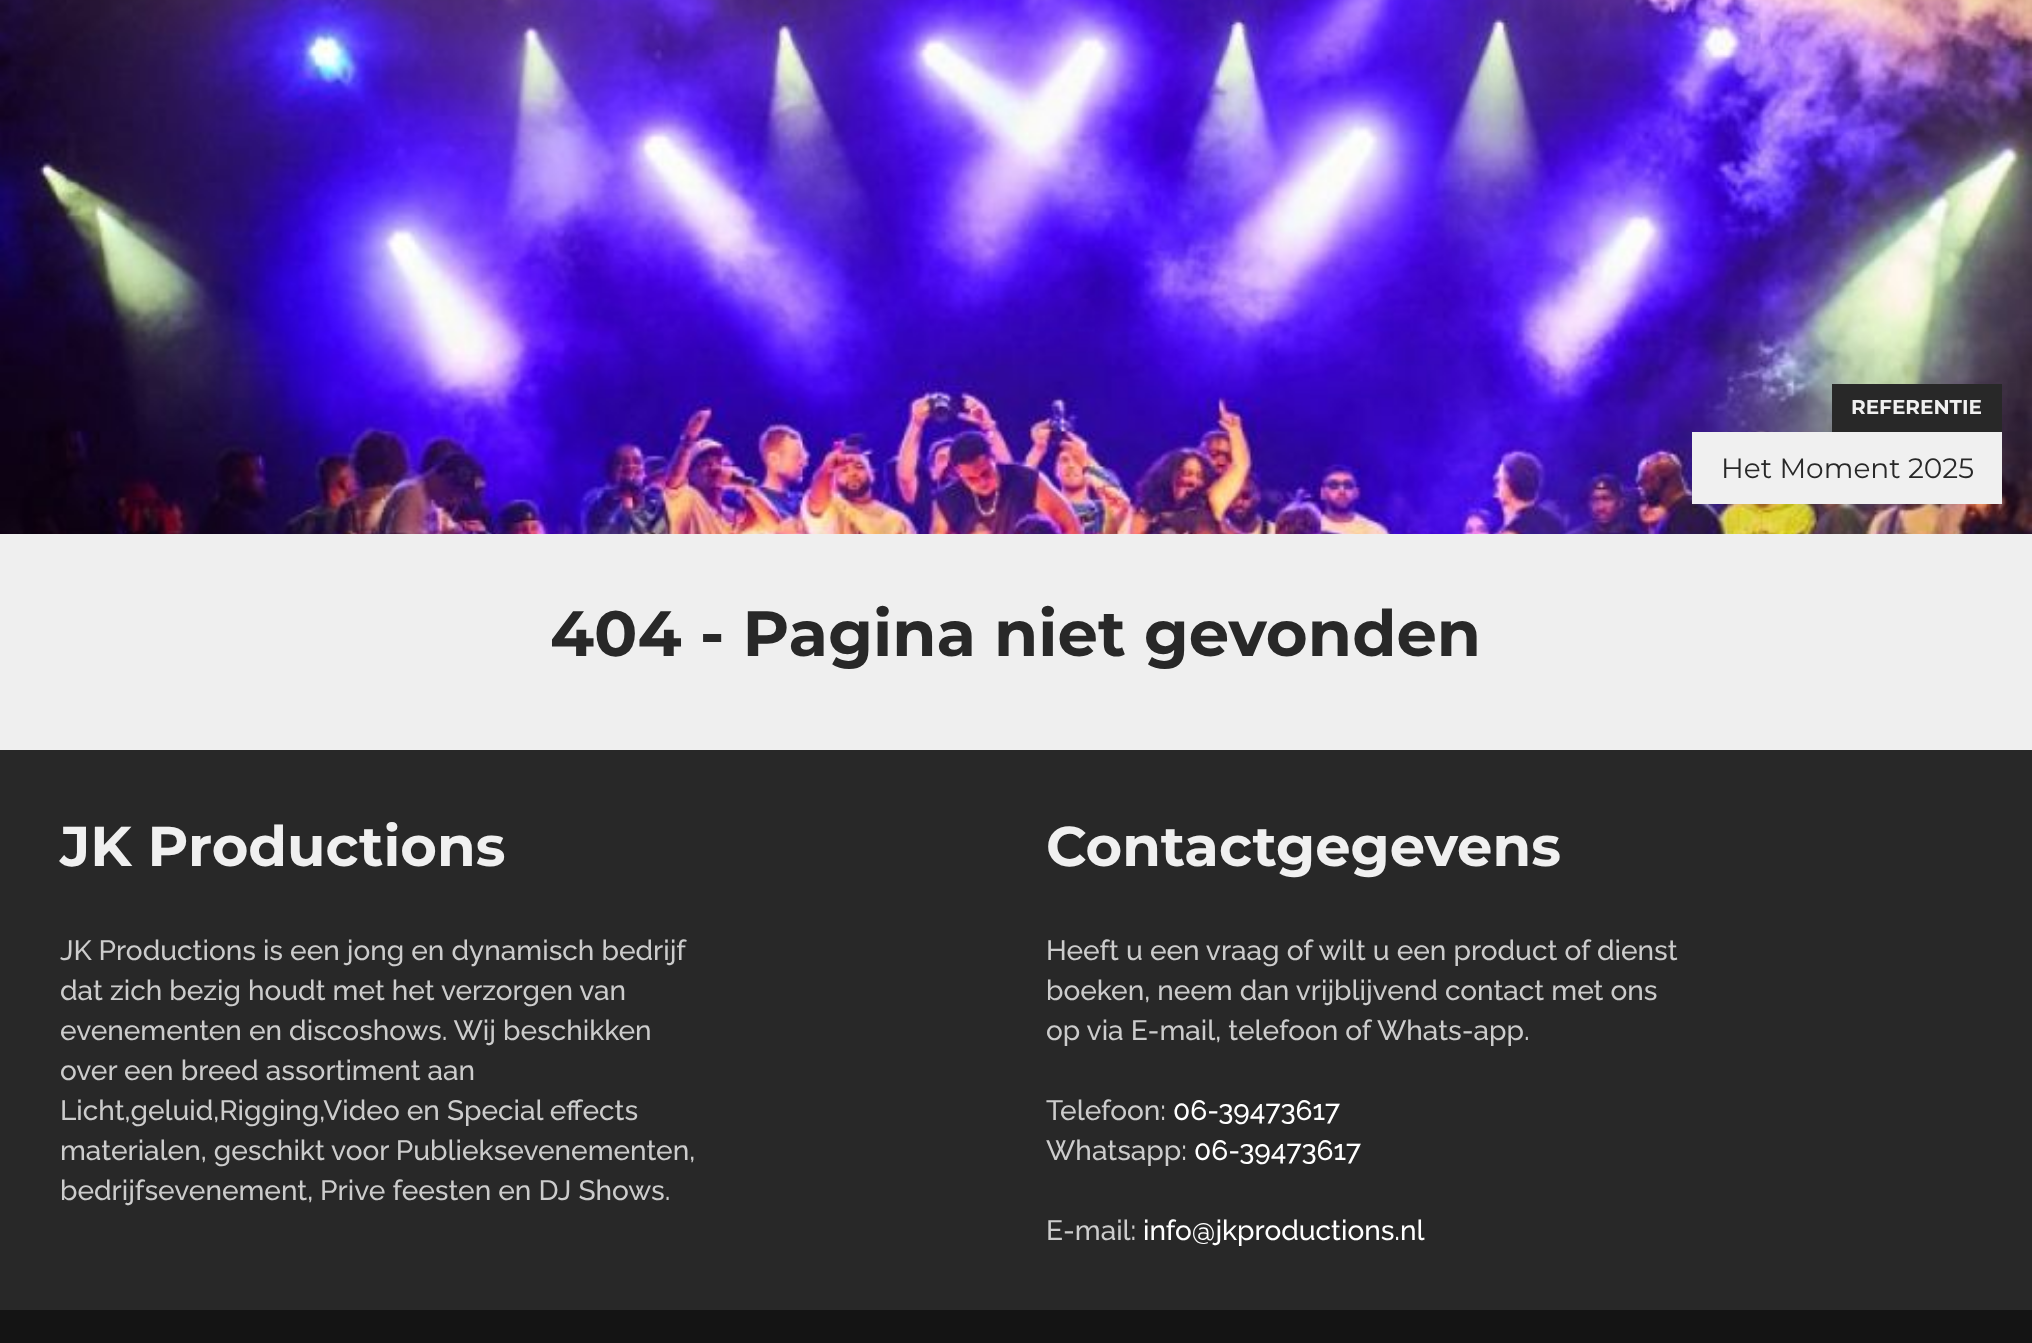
async function draw(canvas) {
	canvas.width = 2032;
	canvas.height = 1343;
	const c = canvas.getContext('2d');
	c.miterLimit = 4;
	c.fontKerning = 'normal';
	async function loadImage(src) {
		const img = new Image();
		img.src = src;
		await img.decode();
		return img;
	}

	c.fillStyle = '#efefef';
	c.fillRect(0, 0, 2032, 1343);
	c.drawImage(await loadImage('img1.png'), 0, 0, 2032, 534);
	c.fillStyle = '#282828';
	c.fillRect(1832, 384, 170, 48);
	c.font = 'bold 20px Montserrat';
	c.fillStyle = '#f0f0f0';
	c.fillText('REFERENTIE', 1851, 414);
	c.fillRect(1692, 432, 310, 72);
	c.font = '28px Montserrat';
	c.fillStyle = '#282828';
	c.fillText('Het Moment 2025', 1721, 478);
	c.font = 'bold 64px Montserrat';
	c.fillText('404 - Pagina niet gevonden', 550, 656);
	c.fillRect(0, 750, 2032, 560);
	c.font = 'bold 56px Montserrat';
	c.fillStyle = '#f0f0f0';
	c.fillText('JK Productions', 60, 866);
	c.font = '500 28px Raleway';
	c.fillStyle = '#ccc';
	for (const [text, x, y] of [
		['JK Productions is een jong en dynamisch bedrijf', 60, 960],
		['dat zich bezig houdt met het verzorgen van', 60, 1000],
		['evenementen en discoshows. Wij beschikken', 60, 1040],
		['over een breed assortiment aan', 60, 1080],
		['Licht,geluid,Rigging,Video en Special effects', 60, 1120],
		['materialen, geschikt voor Publieksevenementen,', 60, 1160],
		['bedrijfsevenement, Prive feesten en DJ Shows.', 60, 1200],
	]) {
		c.fillText(text, x, y);
	}
	c.font = 'bold 56px Montserrat';
	c.fillStyle = '#f0f0f0';
	c.fillText('Contactgegevens', 1046, 866);
	c.font = '500 28px Raleway';
	c.fillStyle = '#ccc';
	for (const [text, x, y] of [
		['Heeft u een vraag of wilt u een product of dienst', 1046, 960],
		['boeken, neem dan vrijblijvend contact met ons', 1046, 1000],
		['op via E-mail, telefoon of Whats-app.', 1046, 1040],
		['Telefoon:', 1046, 1120],
	]) {
		c.fillText(text, x, y);
	}
	c.fillStyle = '#fff';
	c.fillText('06-39473617', 1173, 1120);
	c.fillStyle = '#ccc';
	c.fillText('Whatsapp:', 1046, 1160);
	c.fillStyle = '#fff';
	c.fillText('06-39473617', 1194, 1160);
	c.fillStyle = '#ccc';
	c.fillText('E-mail:', 1046, 1240);
	c.fillStyle = '#fff';
	c.fillText('info@jkproductions.nl', 1143, 1240);
	c.fillStyle = '#141414';
	c.fillRect(0, 1310, 2032, 33);
}

draw(document.querySelector('canvas'));
